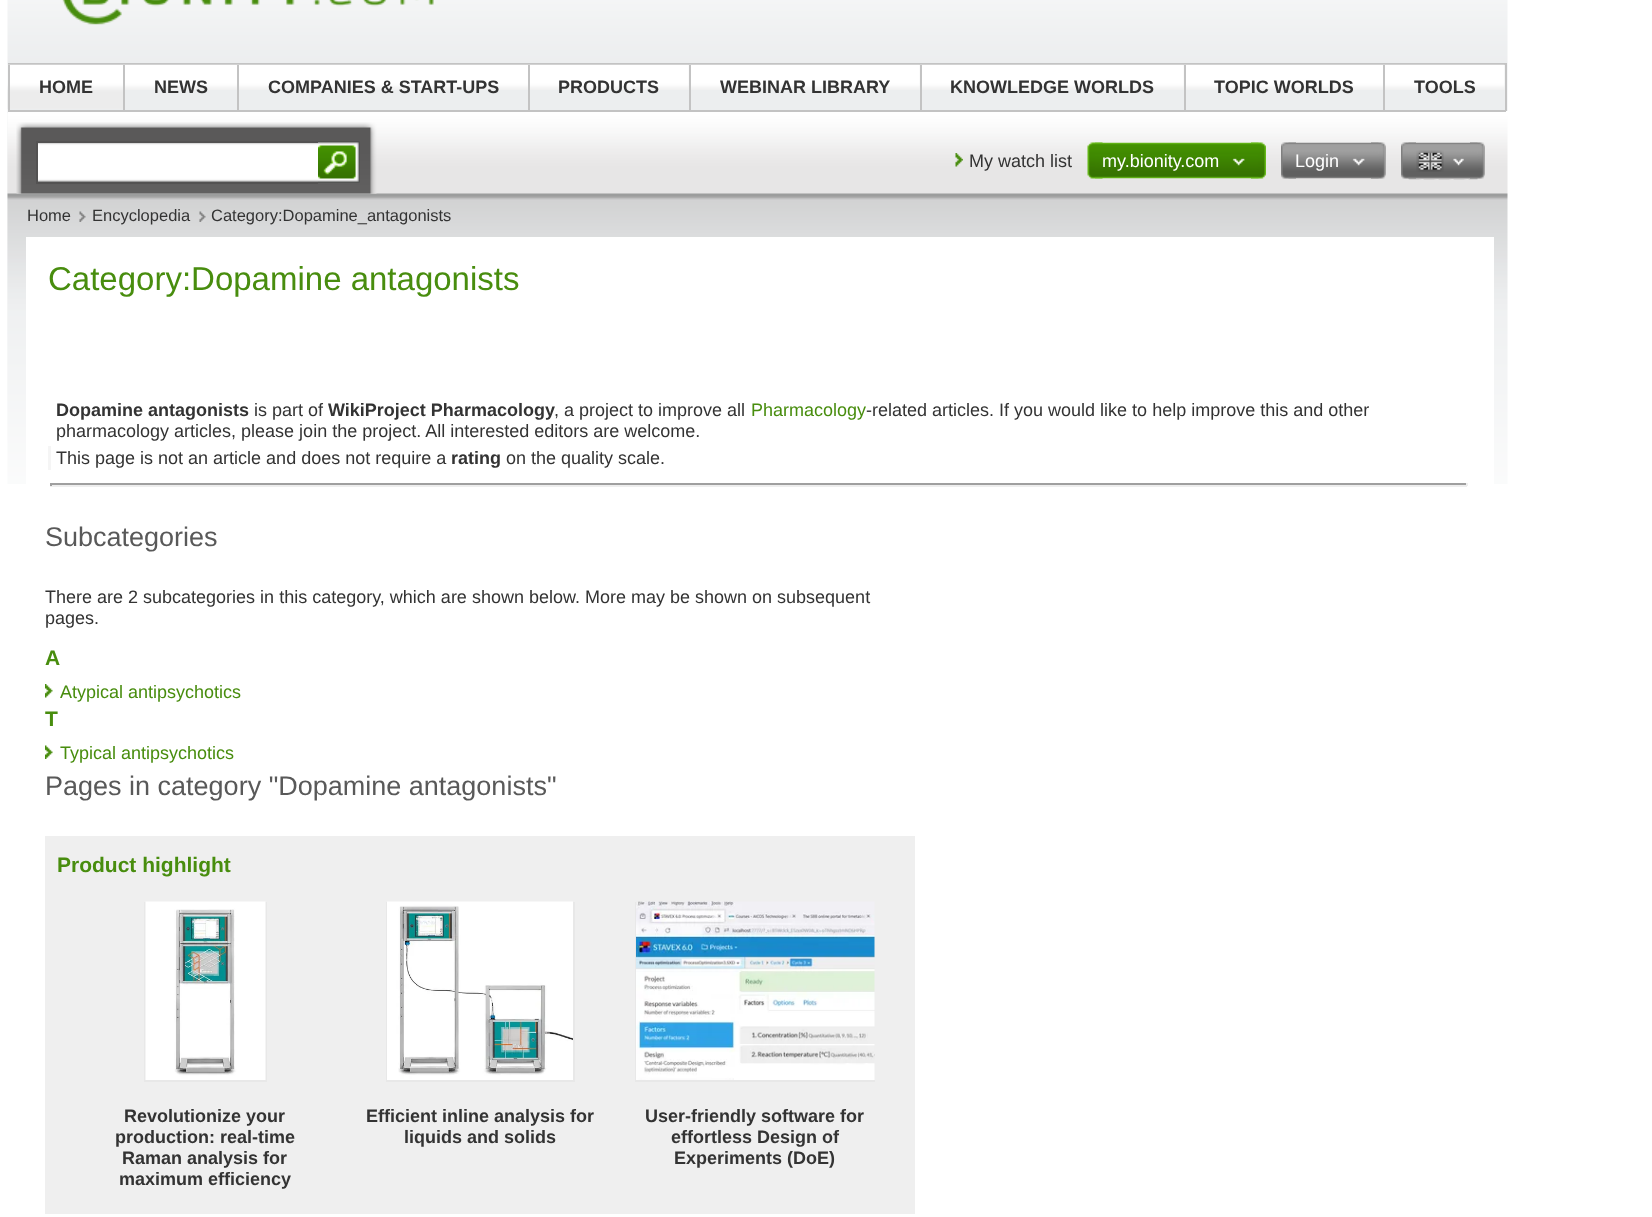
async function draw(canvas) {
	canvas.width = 1652;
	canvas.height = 1217;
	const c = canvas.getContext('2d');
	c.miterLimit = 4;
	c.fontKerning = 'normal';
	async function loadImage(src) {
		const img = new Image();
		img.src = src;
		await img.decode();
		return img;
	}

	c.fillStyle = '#fff';
	c.fillRect(0, 0, 1652, 1217);
	c.drawImage(await loadImage('img1.png'), 7, 0, 1501, 440);
	c.drawImage(await loadImage('img2.png'), 62, 0, 372, 25);
	for (const [x, y, w, h, color] of [
		[8, 63, 1498, 2, '#c3c3c3'],
		[1505, 63, 2, 48, '#c3c3c3'],
		[8, 111, 1500, 329, '#fff'],
		[8, 110, 1498, 2, '#c3c3c3'],
	]) {
		c.fillStyle = color;
		c.fillRect(x, y, w, h);
	}
	c.drawImage(await loadImage('img3.png'), 7, 64, 116, 45);
	c.fillRect(8, 65, 2, 45);
	c.font = 'bold 18px Liberation Sans';
	c.fillStyle = '#333';
	c.fillText('HOME', 39, 93);
	c.drawImage(await loadImage('img4.png'), 123, 64, 114, 26);
	c.fillStyle = '#c3c3c3';
	c.fillRect(123, 65, 2, 45);
	c.fillStyle = '#333';
	c.fillText('NEWS', 154, 93);
	c.drawImage(await loadImage('img5.png'), 237, 64, 291, 26);
	c.fillStyle = '#c3c3c3';
	c.fillRect(237, 65, 2, 45);
	c.fillStyle = '#333';
	c.fillText('COMPANIES & START-UPS', 268, 93);
	c.drawImage(await loadImage('img6.png'), 528, 64, 161, 26);
	c.fillStyle = '#c3c3c3';
	c.fillRect(528, 65, 2, 45);
	c.fillStyle = '#333';
	c.fillText('PRODUCTS', 558, 93);
	c.drawImage(await loadImage('img7.png'), 688, 64, 232, 26);
	c.fillStyle = '#c3c3c3';
	c.fillRect(689, 65, 2, 45);
	c.fillStyle = '#333';
	c.fillText('WEBINAR LIBRARY', 720, 93);
	c.drawImage(await loadImage('img8.png'), 919, 64, 265, 26);
	c.fillStyle = '#c3c3c3';
	c.fillRect(920, 65, 2, 45);
	c.fillStyle = '#333';
	c.fillText('KNOWLEDGE WORLDS', 950, 93);
	c.drawImage(await loadImage('img9.png'), 1183, 64, 200, 26);
	c.fillStyle = '#c3c3c3';
	c.fillRect(1184, 65, 2, 45);
	c.fillStyle = '#333';
	c.fillText('TOPIC WORLDS', 1214, 93);
	c.drawImage(await loadImage('img10.png'), 1383, 64, 122, 26);
	c.fillStyle = '#c3c3c3';
	c.fillRect(1383, 65, 2, 45);
	c.fillStyle = '#333';
	c.fillText('TOOLS', 1414, 93);
	c.drawImage(await loadImage('img11.png'), 7, 113, 1501, 371);
	c.drawImage(await loadImage('img12.png'), 16, 122, 361, 72);
	c.drawImage(await loadImage('img13.png'), 38, 143, 280, 39);
	for (const [x, y, w, h, color] of [
		[36, 141, 282, 2, '#535252'],
		[36, 182, 282, 2, '#535252'],
		[36, 141, 2, 42, '#535252'],
	]) {
		c.fillStyle = color;
		c.fillRect(x, y, w, h);
	}
	c.drawImage(await loadImage('img14.png'), 318, 141, 42, 42);
	c.drawImage(await loadImage('img15.png'), 955, 153, 8, 14);
	c.font = '18px Liberation Sans';
	c.fillStyle = '#333';
	c.fillText('My watch list', 969, 167);
	c.drawImage(await loadImage('img16.png'), 1087, 142, 16, 37);
	c.drawImage(await loadImage('img17.png'), 1251, 142, 15, 37);
	c.drawImage(await loadImage('img18.png'), 1095, 142, 164, 37);
	c.fillStyle = '#fff';
	c.fillText('my.bionity.com', 1102, 167);
	c.drawImage(await loadImage('img19.png'), 1232, 158, 13, 8);
	c.drawImage(await loadImage('img20.png'), 1281, 142, 15, 37);
	c.drawImage(await loadImage('img21.png'), 1371, 142, 15, 37);
	c.drawImage(await loadImage('img22.png'), 1288, 142, 91, 37);
	c.fillText('Login', 1295, 167);
	c.drawImage(await loadImage('img23.png'), 1352, 158, 13, 8);
	c.drawImage(await loadImage('img24.png'), 1401, 142, 15, 37);
	c.drawImage(await loadImage('img25.png'), 1470, 142, 15, 37);
	c.drawImage(await loadImage('img26.png'), 1408, 142, 70, 38);
	c.drawImage(await loadImage('img27.png'), 1416, 150, 28, 22);
	c.drawImage(await loadImage('img28.png'), 1453, 158, 11, 8);
	c.font = '16.5px Liberation Sans';
	c.fillStyle = '#333';
	c.fillText('Home', 27, 221);
	c.drawImage(await loadImage('img29.png'), 79, 211, 7, 11);
	c.fillText('Encyclopedia', 92, 221);
	c.drawImage(await loadImage('img29.png'), 199, 211, 7, 11);
	c.fillText('Category:Dopamine_antagonists', 211, 221);
	c.fillStyle = '#fff';
	c.fillRect(26, 237, 1468, 247);
	c.font = '33px Liberation Sans';
	c.fillStyle = '#488d0e';
	c.fillText('Category:Dopamine antagonists', 48, 290);
	c.font = 'bold 18px Liberation Sans';
	c.fillStyle = '#333';
	c.fillText('Dopamine antagonists', 56, 416);
	c.font = '18px Liberation Sans';
	c.fillText('is part of', 254, 416);
	c.font = 'bold 18px Liberation Sans';
	c.fillText('WikiProject Pharmacology', 328, 416);
	c.font = '18px Liberation Sans';
	c.fillText(', a project to improve all', 554, 416);
	c.fillStyle = '#488d0e';
	c.fillText('Pharmacology', 751, 416);
	c.fillStyle = '#333';
	c.fillText('-related articles. If you would like to help improve this and other', 866, 416);
	c.fillText('pharmacology articles, please join the project. All interested editors are welcome.', 56, 437);
	c.fillStyle = '#f5f5f5';
	c.fillRect(48, 446, 3, 24);
	c.fillStyle = '#333';
	c.fillText('This page is not an article and does not require a', 56, 464);
	c.font = 'bold 18px Liberation Sans';
	c.fillText('rating', 451, 464);
	c.font = '18px Liberation Sans';
	c.fillText('on the quality scale.', 506, 464);
	for (const [x, y, w, h, color] of [
		[50, 483, 1417, 2, '#9f9f9f'],
		[1466, 483, 2, 3, '#eee'],
		[50, 485, 1417, 2, '#eee'],
		[50, 483, 2, 3, '#9f9f9f'],
	]) {
		c.fillStyle = color;
		c.fillRect(x, y, w, h);
	}
	c.font = '27px Liberation Sans';
	c.fillStyle = '#595959';
	c.fillText('Subcategories', 45, 546);
	c.font = '18px Liberation Sans';
	c.fillStyle = '#333';
	c.fillText('There are 2 subcategories in this category, which are shown below. More may be shown on subsequent', 45, 603);
	c.fillText('pages.', 45, 624);
	c.font = 'bold 21px Liberation Sans';
	c.fillStyle = '#488d0e';
	c.fillText('A', 45, 665);
	c.drawImage(await loadImage('img30.png'), 45, 684, 8, 14);
	c.font = '18px Liberation Sans';
	c.fillText('Atypical antipsychotics', 60, 698);
	c.font = 'bold 21px Liberation Sans';
	c.fillText('T', 45, 726);
	c.drawImage(await loadImage('img31.png'), 45, 745, 8, 14);
	c.font = '18px Liberation Sans';
	c.fillText('Typical antipsychotics', 60, 759);
	c.font = '27px Liberation Sans';
	c.fillStyle = '#595959';
	c.fillText('Pages in category "Dopamine antagonists"', 45, 795);
	c.fillStyle = '#efefef';
	c.fillRect(45, 836, 870, 378);
	c.font = 'bold 21px Liberation Sans';
	c.fillStyle = '#488d0e';
	c.fillText('Product highlight', 57, 872);
	c.save();
	c.beginPath();
	c.rect(86, 902, 240, 180);
	c.clip();
	c.strokeStyle = '#e8e8e8';
	c.lineWidth = 2;
	c.strokeRect(145, 900, 121, 181);
	c.restore();
	c.drawImage(await loadImage('img32.png'), 145, 901, 121, 179);
	c.font = 'bold 18px Liberation Sans';
	c.fillStyle = '#333';
	for (const [text, x, y] of [
		['Revolutionize your', 124, 1122],
		['production: real-time', 115, 1143],
		['Raman analysis for', 122, 1164],
		['maximum efficiency', 119, 1185],
	]) {
		c.fillText(text, x, y);
	}
	c.save();
	c.beginPath();
	c.rect(360, 902, 240, 180);
	c.clip();
	c.strokeStyle = '#e8e8e8';
	c.lineWidth = 2;
	c.strokeRect(387, 900, 187, 181);
	c.restore();
	c.drawImage(await loadImage('img33.png'), 387, 901, 186, 179);
	c.fillText('Efficient inline analysis for', 366, 1122);
	c.fillText('liquids and solids', 404, 1143);
	c.save();
	c.beginPath();
	c.rect(635, 902, 240, 180);
	c.clip();
	c.strokeStyle = '#e8e8e8';
	c.lineWidth = 2;
	c.strokeRect(636, 900, 409, 181);
	c.restore();
	c.drawImage(await loadImage('img34.png'), 636, 901, 239, 179);
	for (const [text, x, y] of [
		['User-friendly software for', 645, 1122],
		['effortless Design of', 671, 1143],
		['Experiments (DoE)', 674, 1164],
	]) {
		c.fillText(text, x, y);
	}
}

draw(document.querySelector('canvas'));
